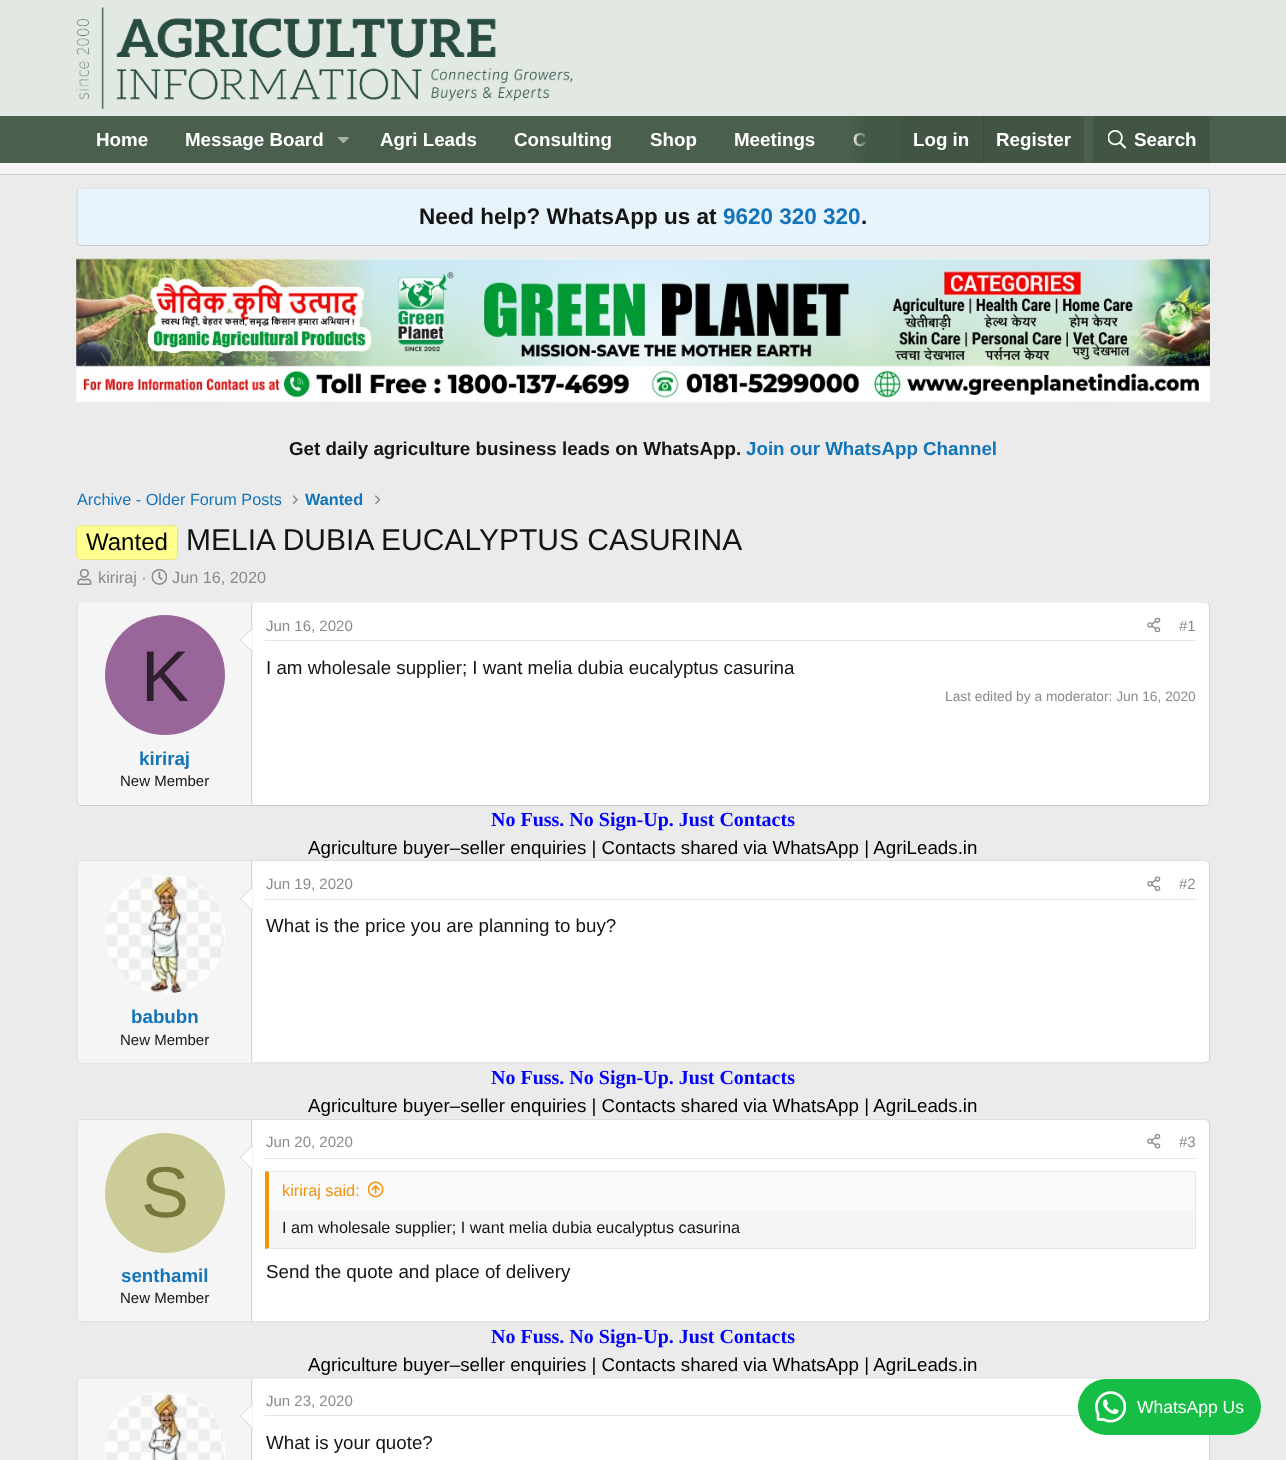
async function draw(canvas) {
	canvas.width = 1286;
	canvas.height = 1460;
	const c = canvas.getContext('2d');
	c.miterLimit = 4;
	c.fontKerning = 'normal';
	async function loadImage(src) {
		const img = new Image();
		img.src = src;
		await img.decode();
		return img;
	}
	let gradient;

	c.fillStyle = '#ebebeb';
	c.fillRect(0, 0, 1286, 1460);
	c.fillStyle = '#e2e9e3';
	c.fillRect(0, 0, 1286, 116);
	c.drawImage(await loadImage('img1.png'), 76, 7, 497, 102);
	c.fillStyle = '#4a5f4d';
	c.fillRect(0, 116, 1286, 47);
	c.font = 'bold 18.75px Liberation Sans';
	c.fillStyle = '#fff';
	c.fillText('Home', 96, 146);
	c.fillText('Message Board', 185, 146);
	c.drawImage(await loadImage('img2.png'), 338, 137, 11, 7);
	for (const [text, x, y] of [
		['Agri Leads', 380, 146],
		['Consulting', 514, 146],
		['Shop', 650, 146],
		['Meetings', 734, 146],
		['C', 853, 146],
	]) {
		c.fillText(text, x, y);
	}
	gradient = c.createLinearGradient(851, 139, 901, 139);
	gradient.addColorStop(0, '#41584500');
	gradient.addColorStop(0.33, '#415845f2');
	c.fillStyle = gradient;
	c.fillRect(853, 116, 48, 47);
	c.fillStyle = '#425444';
	c.beginPath();
	c.roundRect(901, 116, 183, 47, [5, 5, 0, 0]);
	c.fill();
	c.fillStyle = '#fff';
	c.fillText('Log in', 913, 146);
	c.fillStyle = '#3b4a3d';
	c.fillRect(983, 116, 1, 47);
	c.fillStyle = '#fff';
	c.fillText('Register', 996, 146);
	c.fillStyle = '#425444';
	c.beginPath();
	c.roundRect(1093, 116, 117, 47, [5, 5, 0, 0]);
	c.fill();
	c.drawImage(await loadImage('img3.png'), 1108, 130, 18, 19);
	c.fillStyle = '#fff';
	c.fillText('Search', 1134, 146);
	c.fillStyle = '#f5f5f5';
	c.fillRect(0, 163, 1286, 11);
	c.fillStyle = '#ccc';
	c.fillRect(0, 174, 1286, 1);
	c.fillStyle = '#e8f4fc';
	c.beginPath();
	c.roundRect(76, 188, 1134, 58, 5);
	c.fill();
	c.beginPath();
	c.moveTo(78, 189.5);
	c.lineTo(81, 188);
	c.lineTo(1205, 188);
	c.lineTo(1208, 189.5);
	c.strokeStyle = '#e0e0e0';
	c.lineWidth = 1.2;
	c.stroke();
	c.beginPath();
	c.moveTo(1208, 189.5);
	c.bezierCurveTo(1209, 190, 1209.5, 191.5, 1209.5, 192.5);
	c.lineTo(1209.5, 241);
	c.bezierCurveTo(1209.5, 242.5, 1209, 243.5, 1208, 244.5);
	c.strokeStyle = '#d6d6d6';
	c.stroke();
	c.beginPath();
	c.moveTo(1208, 244.5);
	c.lineTo(1205, 245.5);
	c.lineTo(81, 245.5);
	c.lineTo(78, 244.5);
	c.strokeStyle = '#ccc';
	c.stroke();
	c.beginPath();
	c.moveTo(78, 244.5);
	c.bezierCurveTo(77.5, 243.5, 77, 242.5, 77, 241);
	c.lineTo(77, 192.5);
	c.bezierCurveTo(77, 191.5, 77.5, 190, 78, 189.5);
	c.strokeStyle = '#d6d6d6';
	c.stroke();
	c.font = 'bold 22.5px Liberation Sans';
	c.fillStyle = '#141414';
	c.fillText('Need help? WhatsApp us at', 419, 224);
	c.fillStyle = '#1474b8';
	c.fillText('9620 320 320', 723, 224);
	c.fillStyle = '#141414';
	c.fillText('.', 861, 224);
	c.drawImage(await loadImage('img4.png'), 76, 258, 1134, 145);
	c.font = 'bold 18.75px Liberation Sans';
	c.fillText('Get daily agriculture business leads on WhatsApp.', 289, 455);
	c.fillStyle = '#1474b8';
	c.fillText('Join our WhatsApp Channel', 746, 455);
	c.font = '16.25px Liberation Sans';
	c.fillText('Archive - Older Forum Posts', 77, 505);
	c.drawImage(await loadImage('img5.png'), 293, 495, 5, 10);
	c.font = 'bold 16.25px Liberation Sans';
	c.fillText('Wanted', 305, 505);
	c.drawImage(await loadImage('img6.png'), 375, 495, 5, 10);
	c.fillStyle = '#ffff91';
	c.beginPath();
	c.roundRect(76.5, 525.5, 101, 34, 4.5);
	c.fill();
	c.strokeStyle = '#e6e687';
	c.lineWidth = 1;
	c.stroke();
	c.font = '24px Liberation Sans';
	c.fillStyle = '#000';
	c.fillText('Wanted', 86, 550);
	c.font = '30px Liberation Sans';
	c.fillStyle = '#141414';
	c.fillText('MELIA DUBIA EUCALYPTUS CASURINA', 186, 550);
	c.drawImage(await loadImage('img7.png'), 77, 569, 15, 16);
	c.font = '16.25px Liberation Sans';
	c.fillStyle = '#8a8a8a';
	c.fillText('kiriraj ·', 98, 583);
	c.drawImage(await loadImage('img8.png'), 151, 569, 17, 16);
	c.fillText('Jun 16, 2020', 172, 583);
	c.fillStyle = '#fff';
	c.beginPath();
	c.roundRect(76, 601, 1134, 205, 5);
	c.fill();
	c.beginPath();
	c.moveTo(78, 603);
	c.lineTo(81, 602);
	c.lineTo(1205, 602);
	c.lineTo(1208, 603);
	c.strokeStyle = '#e0e0e0';
	c.lineWidth = 1.2;
	c.stroke();
	c.beginPath();
	c.moveTo(1208, 603);
	c.bezierCurveTo(1209, 604, 1209.5, 605, 1209.5, 606);
	c.lineTo(1209.5, 801);
	c.bezierCurveTo(1209.5, 802.5, 1209, 803.5, 1208, 804.5);
	c.strokeStyle = '#d6d6d6';
	c.stroke();
	c.beginPath();
	c.moveTo(1208, 804.5);
	c.lineTo(1205, 805.5);
	c.lineTo(81, 805.5);
	c.lineTo(78, 804.5);
	c.strokeStyle = '#ccc';
	c.stroke();
	c.beginPath();
	c.moveTo(78, 804.5);
	c.bezierCurveTo(77.5, 803.5, 77, 802.5, 77, 801);
	c.lineTo(77, 606);
	c.bezierCurveTo(77, 605, 77.5, 604, 78, 603);
	c.strokeStyle = '#d6d6d6';
	c.stroke();
	c.fillStyle = '#f5f5f5';
	c.beginPath();
	c.roundRect(78, 603, 175, 202, [4, 0, 0, 4]);
	c.fill();
	c.fillStyle = '#d6d6d6';
	c.fillRect(251, 603, 1, 202);
	c.beginPath();
	c.moveTo(252.5, 627.5);
	c.lineTo(252.5, 652.5);
	c.lineTo(240, 640);
	c.closePath();
	c.fill();
	c.fillStyle = '#fff';
	c.beginPath();
	c.moveTo(252.5, 629);
	c.lineTo(252.5, 651);
	c.lineTo(241, 640);
	c.closePath();
	c.fill();
	c.fillStyle = '#969';
	c.beginPath();
	c.arc(165, 675, 60, 0, 2 * Math.PI);
	c.fill();
	c.font = '72px Liberation Sans';
	c.fillStyle = '#2e1f2e';
	c.fillText('K', 141, 701);
	c.font = 'bold 18.75px Liberation Sans';
	c.fillStyle = '#1474b8';
	c.fillText('kiriraj', 139, 765);
	c.font = '15px Liberation Sans';
	c.fillStyle = '#141414';
	c.fillText('New Member', 120, 786);
	c.fillStyle = '#e5e5e5';
	c.fillRect(265, 640, 931, 1);
	c.fillStyle = '#8a8a8a';
	c.fillText('Jun 16, 2020', 266, 631);
	c.drawImage(await loadImage('img9.png'), 1147, 617, 14, 16);
	c.fillText('#1', 1179, 631);
	c.font = '18.75px Liberation Sans';
	c.fillStyle = '#141414';
	c.fillText('I am wholesale supplier; I want melia dubia eucalyptus casurina', 266, 674);
	c.font = '13.75px Liberation Sans';
	c.fillStyle = '#8a8a8a';
	c.fillText('Last edited by a moderator: Jun 16, 2020', 945, 701);
	c.font = 'bold 20px Liberation Serif';
	c.fillStyle = '#00f';
	c.fillText('No Fuss. No Sign-Up. Just Contacts', 491, 826);
	c.font = '18.75px Liberation Sans';
	c.fillStyle = '#000';
	c.fillText('Agriculture buyer–seller enquiries | Contacts shared via WhatsApp | AgriLeads.in', 308, 854);
	c.fillStyle = '#fff';
	c.beginPath();
	c.roundRect(76, 860, 1134, 204, 5);
	c.fill();
	c.beginPath();
	c.moveTo(78, 862);
	c.lineTo(81, 860.5);
	c.lineTo(1205, 860.5);
	c.lineTo(1208, 862);
	c.strokeStyle = '#e0e0e0';
	c.stroke();
	c.beginPath();
	c.moveTo(1208, 862);
	c.bezierCurveTo(1209, 862.5, 1209.5, 864, 1209.5, 865);
	c.lineTo(1209.5, 1059);
	c.bezierCurveTo(1209.5, 1060, 1209, 1061, 1208, 1062);
	c.strokeStyle = '#d6d6d6';
	c.stroke();
	c.beginPath();
	c.moveTo(1208, 1062);
	c.lineTo(1205, 1063);
	c.lineTo(81, 1063);
	c.lineTo(78, 1062);
	c.strokeStyle = '#ccc';
	c.stroke();
	c.beginPath();
	c.moveTo(78, 1062);
	c.bezierCurveTo(77.5, 1061, 77, 1060, 77, 1059);
	c.lineTo(77, 865);
	c.bezierCurveTo(77, 864, 77.5, 862.5, 78, 862);
	c.strokeStyle = '#d6d6d6';
	c.stroke();
	c.fillStyle = '#e5e5e5';
	c.fillRect(265, 899, 931, 1);
	c.font = '15px Liberation Sans';
	c.fillStyle = '#8a8a8a';
	c.fillText('Jun 19, 2020', 266, 889);
	c.drawImage(await loadImage('img10.png'), 1147, 876, 14, 15);
	c.fillText('#2', 1179, 889);
	c.font = '18.75px Liberation Sans';
	c.fillStyle = '#141414';
	c.fillText('What is the price you are planning to buy?', 266, 932);
	c.fillStyle = '#f5f5f5';
	c.beginPath();
	c.roundRect(78, 861, 175, 202, [4, 0, 0, 4]);
	c.fill();
	c.fillStyle = '#d6d6d6';
	c.fillRect(251, 861, 1, 202);
	c.fillStyle = '#fff';
	c.beginPath();
	c.arc(165, 934, 60, 0, 2 * Math.PI);
	c.fill();
	c.drawImage(await loadImage('img11.png'), 105, 874, 120, 120);
	c.fillStyle = '#d6d6d6';
	c.beginPath();
	c.moveTo(252.5, 886);
	c.lineTo(252.5, 911);
	c.lineTo(240, 899);
	c.closePath();
	c.fill();
	c.fillStyle = '#fff';
	c.beginPath();
	c.moveTo(252.5, 887.5);
	c.lineTo(252.5, 910);
	c.lineTo(241, 899);
	c.closePath();
	c.fill();
	c.font = 'bold 18.75px Liberation Sans';
	c.fillStyle = '#1474b8';
	c.fillText('babubn', 131, 1023);
	c.font = '15px Liberation Sans';
	c.fillStyle = '#141414';
	c.fillText('New Member', 120, 1045);
	c.font = 'bold 20px Liberation Serif';
	c.fillStyle = '#00f';
	c.fillText('No Fuss. No Sign-Up. Just Contacts', 491, 1084);
	c.font = '18.75px Liberation Sans';
	c.fillStyle = '#000';
	c.fillText('Agriculture buyer–seller enquiries | Contacts shared via WhatsApp | AgriLeads.in', 308, 1112);
	c.fillStyle = '#fff';
	c.beginPath();
	c.roundRect(76, 1119, 1134, 204, 5);
	c.fill();
	c.beginPath();
	c.moveTo(78, 1120.5);
	c.lineTo(81, 1119.5);
	c.lineTo(1205, 1119.5);
	c.lineTo(1208, 1120.5);
	c.strokeStyle = '#e0e0e0';
	c.stroke();
	c.beginPath();
	c.moveTo(1208, 1120.5);
	c.bezierCurveTo(1209, 1121.5, 1209.5, 1122.5, 1209.5, 1124);
	c.lineTo(1209.5, 1317.5);
	c.bezierCurveTo(1209.5, 1318.5, 1209, 1320, 1208, 1320.5);
	c.strokeStyle = '#d6d6d6';
	c.stroke();
	c.beginPath();
	c.moveTo(1208, 1320.5);
	c.lineTo(1205, 1322);
	c.lineTo(81, 1322);
	c.lineTo(78, 1320.5);
	c.strokeStyle = '#ccc';
	c.stroke();
	c.beginPath();
	c.moveTo(78, 1320.5);
	c.bezierCurveTo(77.5, 1320, 77, 1318.5, 77, 1317.5);
	c.lineTo(77, 1124);
	c.bezierCurveTo(77, 1122.5, 77.5, 1121.5, 78, 1120.5);
	c.strokeStyle = '#d6d6d6';
	c.stroke();
	c.fillStyle = '#f5f5f5';
	c.beginPath();
	c.roundRect(78, 1120, 175, 201, [4, 0, 0, 4]);
	c.fill();
	c.fillStyle = '#d6d6d6';
	c.fillRect(251, 1120, 1, 201);
	c.beginPath();
	c.moveTo(252.5, 1145);
	c.lineTo(252.5, 1170);
	c.lineTo(240, 1157.5);
	c.closePath();
	c.fill();
	c.fillStyle = '#fff';
	c.beginPath();
	c.moveTo(252.5, 1146);
	c.lineTo(252.5, 1169);
	c.lineTo(241, 1157.5);
	c.closePath();
	c.fill();
	c.fillStyle = '#cc9';
	c.beginPath();
	c.arc(165, 1193, 60, 0, 2 * Math.PI);
	c.fill();
	c.font = '72px Liberation Sans';
	c.fillStyle = '#77773c';
	c.fillText('S', 141, 1217);
	c.font = 'bold 18.75px Liberation Sans';
	c.fillStyle = '#1474b8';
	c.fillText('senthamil', 121, 1282);
	c.font = '15px Liberation Sans';
	c.fillStyle = '#141414';
	c.fillText('New Member', 120, 1303);
	c.fillStyle = '#e5e5e5';
	c.fillRect(265, 1158, 931, 1);
	c.fillStyle = '#8a8a8a';
	c.fillText('Jun 20, 2020', 266, 1147);
	c.drawImage(await loadImage('img12.png'), 1147, 1134, 14, 15);
	c.fillText('#3', 1179, 1147);
	c.fillStyle = '#f5f5f5';
	c.fillRect(269, 1210, 926, 38);
	c.fillStyle = '#e5e5e5';
	c.beginPath();
	c.moveTo(265, 1171);
	c.lineTo(1196, 1171);
	c.lineTo(1195, 1172);
	c.lineTo(269, 1172);
	c.closePath();
	c.fill();
	c.fillRect(1195, 1171, 1, 78);
	c.beginPath();
	c.moveTo(1196, 1249);
	c.lineTo(265, 1249);
	c.lineTo(269, 1248);
	c.lineTo(1195, 1248);
	c.closePath();
	c.fill();
	c.fillStyle = '#f2930d';
	c.beginPath();
	c.moveTo(265, 1249);
	c.lineTo(265, 1171);
	c.lineTo(269, 1172);
	c.lineTo(269, 1248);
	c.closePath();
	c.fill();
	c.fillStyle = '#fafafa';
	c.fillRect(269, 1173, 926, 37);
	c.font = '16.25px Liberation Sans';
	c.fillStyle = '#f2930d';
	c.fillText('kiriraj said:', 282, 1196);
	c.drawImage(await loadImage('img13.png'), 368, 1181, 16, 17);
	c.fillStyle = '#141414';
	c.fillText('I am wholesale supplier; I want melia dubia eucalyptus casurina', 282, 1233);
	c.font = '18.75px Liberation Sans';
	c.fillText('Send the quote and place of delivery', 266, 1278);
	c.font = 'bold 20px Liberation Serif';
	c.fillStyle = '#00f';
	c.fillText('No Fuss. No Sign-Up. Just Contacts', 491, 1343);
	c.font = '18.75px Liberation Sans';
	c.fillStyle = '#000';
	c.fillText('Agriculture buyer–seller enquiries | Contacts shared via WhatsApp | AgriLeads.in', 308, 1371);
	c.fillStyle = '#fff';
	c.beginPath();
	c.roundRect(76, 1378, 1134, 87, 5);
	c.fill();
	c.beginPath();
	c.moveTo(78, 1379.5);
	c.lineTo(81, 1378);
	c.lineTo(1205, 1378);
	c.lineTo(1208, 1379.5);
	c.strokeStyle = '#e0e0e0';
	c.stroke();
	c.beginPath();
	c.moveTo(1208, 1379.5);
	c.bezierCurveTo(1209, 1380, 1209.5, 1381.5, 1209.5, 1382.5);
	c.lineTo(1209.5, 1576);
	c.bezierCurveTo(1209.5, 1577.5, 1209, 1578.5, 1208, 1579.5);
	c.strokeStyle = '#d6d6d6';
	c.stroke();
	c.beginPath();
	c.moveTo(78, 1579.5);
	c.bezierCurveTo(77.5, 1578.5, 77, 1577.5, 77, 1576);
	c.lineTo(77, 1382.5);
	c.bezierCurveTo(77, 1381.5, 77.5, 1380, 78, 1379.5);
	c.stroke();
	c.fillStyle = '#f5f5f5';
	c.beginPath();
	c.moveTo(82, 1379);
	c.lineTo(253, 1379);
	c.lineTo(253, 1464);
	c.lineTo(82, 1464);
	c.bezierCurveTo(80, 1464, 78, 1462, 78, 1460);
	c.lineTo(78, 1383);
	c.bezierCurveTo(78, 1381, 80, 1379, 82, 1379);
	c.closePath();
	c.fill();
	c.fillStyle = '#d6d6d6';
	c.fillRect(251, 1379, 1, 81);
	c.fillStyle = '#fff';
	c.beginPath();
	c.arc(165, 1451, 60, 0, 2 * Math.PI);
	c.fill();
	c.drawImage(await loadImage('img14.png'), 105, 1391, 120, 69);
	c.fillStyle = '#d6d6d6';
	c.beginPath();
	c.moveTo(252.5, 1404);
	c.lineTo(252.5, 1429);
	c.lineTo(240, 1416);
	c.closePath();
	c.fill();
	c.fillStyle = '#fff';
	c.beginPath();
	c.moveTo(252.5, 1405);
	c.lineTo(252.5, 1427.5);
	c.lineTo(241, 1416);
	c.closePath();
	c.fill();
	c.fillStyle = '#e5e5e5';
	c.fillRect(265, 1415, 815, 1);
	c.font = '15px Liberation Sans';
	c.fillStyle = '#8a8a8a';
	c.fillText('Jun 23, 2020', 266, 1406);
	c.font = '18.75px Liberation Sans';
	c.fillStyle = '#141414';
	c.fillText('What is your quote?', 266, 1449);
	c.fillStyle = '#16be45';
	c.beginPath();
	c.roundRect(1078, 1379, 183, 56, 28);
	c.fill();
	c.drawImage(await loadImage('img15.png'), 1095, 1391, 31, 32);
	c.font = '17.5px Liberation Sans';
	c.fillStyle = '#fff';
	c.fillText('WhatsApp Us', 1137, 1413);
}

draw(document.querySelector('canvas'));
